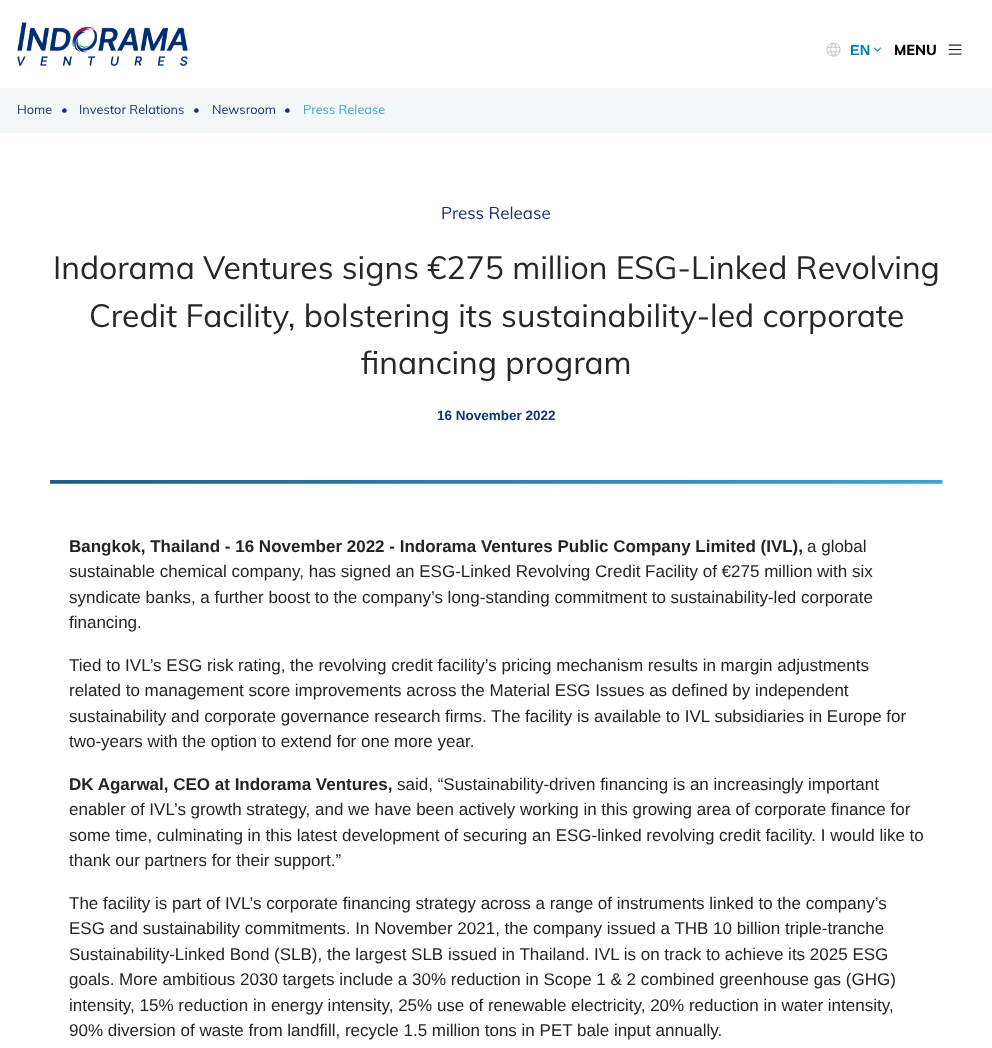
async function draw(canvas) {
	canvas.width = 992;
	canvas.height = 1048;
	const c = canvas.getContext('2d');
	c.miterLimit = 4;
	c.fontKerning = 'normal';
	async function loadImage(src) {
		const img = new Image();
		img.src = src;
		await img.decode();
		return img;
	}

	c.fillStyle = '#fff';
	c.fillRect(0, 0, 992, 1048);
	c.drawImage(await loadImage('img1.png'), 17, 22, 171, 45);
	c.drawImage(await loadImage('img2.png'), 826, 42, 15, 15);
	c.font = 'bold 14.5px Liberation Sans';
	c.fillStyle = '#027cb8';
	c.fillText('EN', 850, 55);
	c.drawImage(await loadImage('img3.png'), 873, 47, 8, 5);
	c.font = '800 14.5px Muli';
	c.fillStyle = '#000';
	c.fillText('MENU', 894, 55);
	c.drawImage(await loadImage('img4.png'), 948, 44, 14, 11);
	c.fillStyle = '#f4f7f7';
	c.fillRect(0, 88, 992, 45);
	c.font = '12.75px Muli';
	c.fillStyle = '#133174';
	for (const [text, x, y] of [
		['Home', 17, 114],
		['•', 61, 114],
		['Investor Relations', 79, 114],
		['•', 193, 114],
		['Newsroom', 212, 114],
		['•', 284, 114],
	]) {
		c.fillText(text, x, y);
	}
	c.fillStyle = '#3da3cf';
	c.fillText('Press Release', 303, 114);
	c.font = '17px Muli';
	c.fillStyle = '#133174';
	c.fillText('Press Release', 441, 219);
	c.font = '31.9px Muli';
	c.fillStyle = '#272727';
	for (const [text, x, y] of [
		['Indorama Ventures signs €275 million ESG-Linked Revolving', 53, 279],
		['Credit Facility, bolstering its sustainability-led corporate', 89, 327],
		['financing program', 361, 374],
	]) {
		c.fillText(text, x, y);
	}
	c.font = 'bold 13.5px Liberation Sans';
	c.fillStyle = '#133174';
	c.fillText('16 November 2022', 437, 420);
	c.drawImage(await loadImage('img5.png'), 50, 480, 893, 4);
	c.font = 'bold 17px Liberation Sans';
	c.fillStyle = '#212529';
	c.fillText('Bangkok, Thailand - 16 November 2022 - Indorama Ventures Public Company Limited (IVL),', 69, 552);
	c.font = '17px Liberation Sans';
	for (const [text, x, y] of [
		['a global', 807, 552],
		['sustainable chemical company, has signed an ESG-Linked Revolving Credit Facility of €275 million with six', 69, 577],
		['syndicate banks, a further boost to the company’s long-standing commitment to sustainability-led corporate', 69, 603],
		['financing.', 69, 628],
		['Tied to IVL’s ESG risk rating, the revolving credit facility’s pricing mechanism results in margin adjustments', 69, 671],
		['related to management score improvements across the Material ESG Issues as defined by independent', 69, 696],
		['sustainability and corporate governance research firms. The facility is available to IVL subsidiaries in Europe for', 69, 722],
		['two-years with the option to extend for one more year.', 69, 747],
	]) {
		c.fillText(text, x, y);
	}
	c.font = 'bold 17px Liberation Sans';
	c.fillText('DK Agarwal, CEO at Indorama Ventures,', 69, 790);
	c.font = '17px Liberation Sans';
	for (const [text, x, y] of [
		['said, “Sustainability-driven financing is an increasingly important', 397, 790],
		['enabler of IVL’s growth strategy, and we have been actively working in this growing area of corporate finance for', 69, 815],
		['some time, culminating in this latest development of securing an ESG-linked revolving credit facility. I would like to', 69, 841],
		['thank our partners for their support.”', 69, 866],
		['The facility is part of IVL’s corporate financing strategy across a range of instruments linked to the company’s', 69, 909],
		['ESG and sustainability commitments. In November 2021, the company issued a THB 10 billion triple-tranche', 69, 934],
		['Sustainability-Linked Bond (SLB), the largest SLB issued in Thailand. IVL is on track to achieve its 2025 ESG', 69, 960],
		['goals. More ambitious 2030 targets include a 30% reduction in Scope 1 & 2 combined greenhouse gas (GHG)', 69, 985],
		['intensity, 15% reduction in energy intensity, 25% use of renewable electricity, 20% reduction in water intensity,', 69, 1011],
		['90% diversion of waste from landfill, recycle 1.5 million tons in PET bale input annually.', 69, 1036],
	]) {
		c.fillText(text, x, y);
	}
}

draw(document.querySelector('canvas'));
